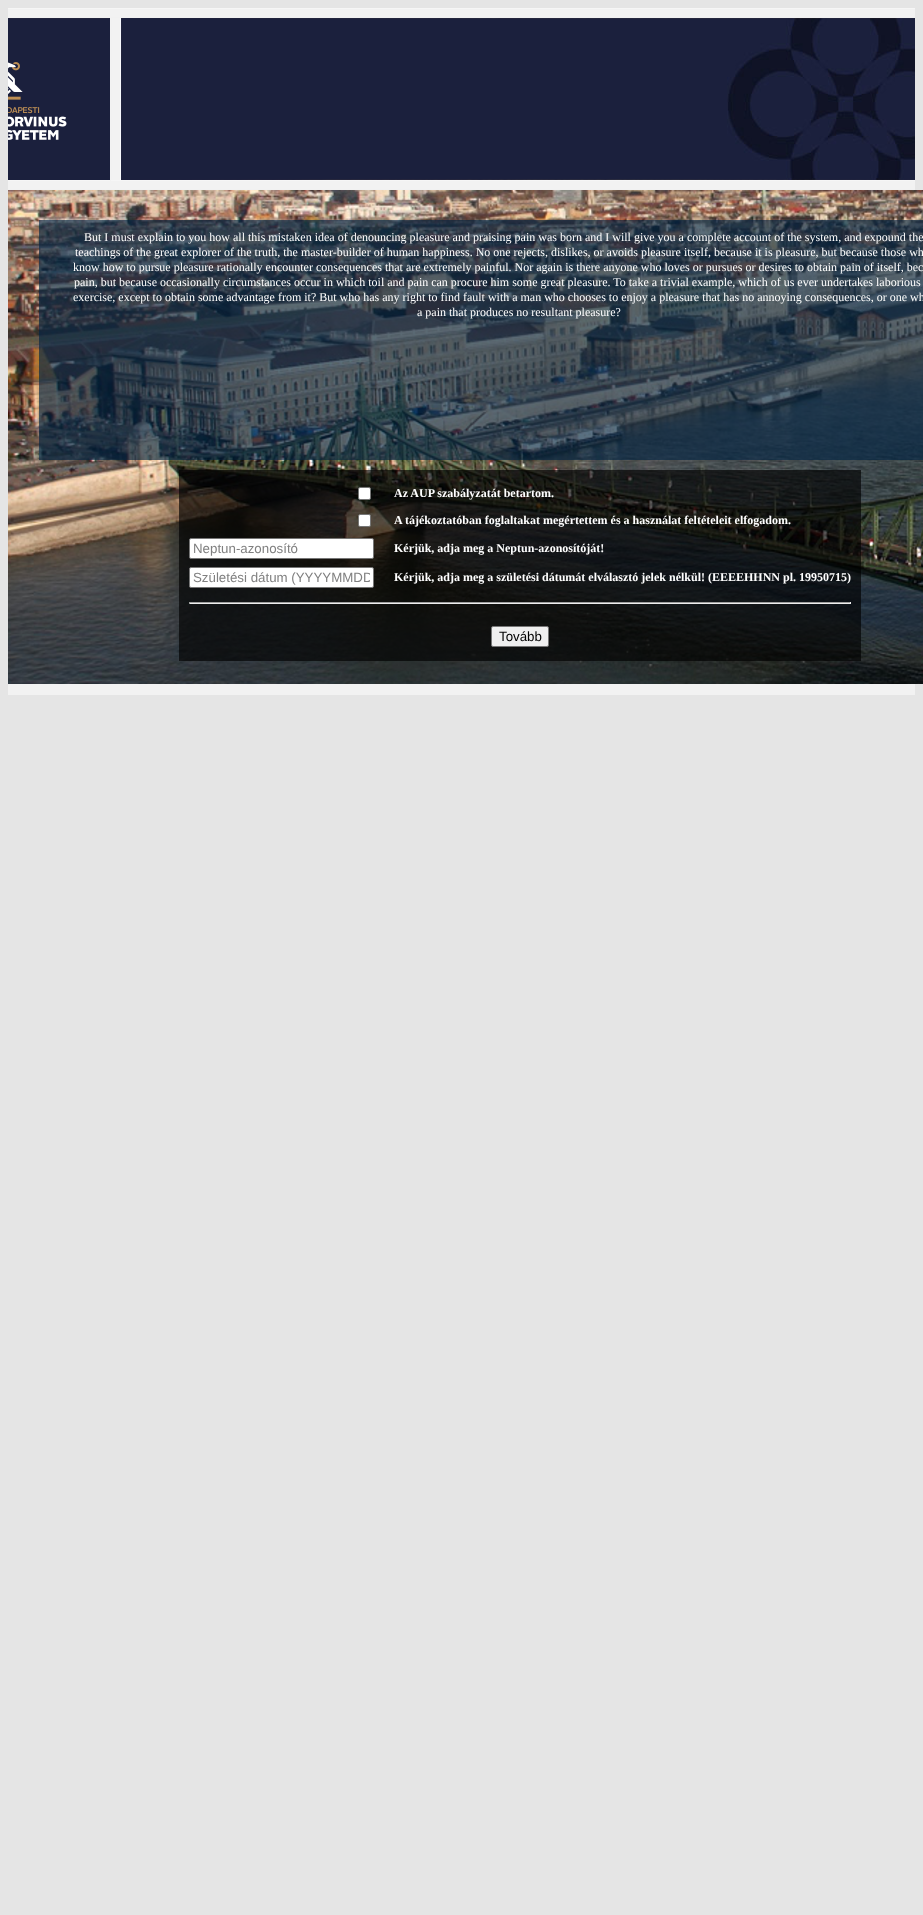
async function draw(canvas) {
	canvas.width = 923;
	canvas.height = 1915;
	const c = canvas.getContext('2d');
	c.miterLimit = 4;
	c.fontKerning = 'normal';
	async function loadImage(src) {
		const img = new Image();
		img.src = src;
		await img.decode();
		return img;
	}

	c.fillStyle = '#e5e5e5';
	c.fillRect(0, 0, 923, 1915);
	c.drawImage(await loadImage('img1.png'), 8, 8, 907, 182);
	c.fillStyle = '#f2f2f2';
	c.fillRect(8, 684, 907, 11);
	c.drawImage(await loadImage('img2.png'), 8, 190, 915, 494);
	c.fillStyle = '#022442a6';
	c.fillRect(39, 220, 884, 240);
	c.font = '12px Liberation Serif';
	c.fillStyle = '#fff';
	for (const [text, x, y] of [
		['But I must explain to you how all this mistaken idea of denouncing pleasure and praising pain was born and I will give you a complete account of the system, and expound the', 84, 241],
		['teachings of the great explorer of the truth, the master-builder of human happiness. No one rejects, dislikes, or avoids pleasure itself, because it is pleasure, but because those wh', 75, 256],
		['know how to pursue pleasure rationally encounter consequences that are extremely painful. Nor again is there anyone who loves or pursues or desires to obtain pain of itself, bec', 73, 271],
		['pain, but because occasionally circumstances occur in which toil and pain can procure him some great pleasure. To take a trivial example, which of us ever undertakes laborious', 74, 286],
		['exercise, except to obtain some advantage from it? But who has any right to find fault with a man who chooses to enjoy a pleasure that has no annoying consequences, or one wh', 73, 301],
		['a pain that produces no resultant pleasure?', 417, 316],
	]) {
		c.fillText(text, x, y);
	}
	c.fillStyle = '#000000a6';
	c.fillRect(179, 470, 682, 191);
	c.fillStyle = '#fff';
	c.beginPath();
	c.roundRect(358.5, 487.5, 12, 12, 1.5);
	c.fill();
	c.strokeStyle = '#767676';
	c.stroke();
	c.font = 'bold 12px Liberation Serif';
	c.fillText('Az AUP szabályzatát betartom.', 394, 497);
	c.beginPath();
	c.roundRect(358.5, 514.5, 12, 12, 1.5);
	c.fill();
	c.stroke();
	c.fillText('A tájékoztatóban foglaltakat megértettem és a használat feltételeit elfogadom.', 394, 524);
	c.beginPath();
	c.roundRect(189.5, 538.5, 184, 20, 1.5);
	c.fill();
	c.stroke();
	c.font = '13.3px Liberation Sans';
	c.fillStyle = '#808080';
	c.fillText('Neptun-azonosító', 193, 553);
	c.font = 'bold 12px Liberation Serif';
	c.fillStyle = '#fff';
	c.fillText('Kérjük, adja meg a Neptun-azonosítóját!', 394, 552);
	c.beginPath();
	c.roundRect(189.5, 567.5, 184, 20, 1.5);
	c.fill();
	c.stroke();
	c.save();
	c.beginPath();
	c.rect(193, 570, 177, 15);
	c.clip();
	c.font = '13.3px Liberation Sans';
	c.fillStyle = '#808080';
	c.fillText('Születési dátum (YYYYMMDD', 193, 582);
	c.restore();
	c.fillText('Kérjük, adja meg a születési dátumát elválasztó jelek nélkül! (EEEEHHNN pl. 19950715)', 394, 581);
	for (const [x, y, w, h, color] of [
		[189, 602, 662, 1, '#9f9f9f'],
		[850, 602, 1, 2, '#eee'],
		[189, 603, 662, 1, '#eee'],
		[189, 602, 1, 2, '#9f9f9f'],
	]) {
		c.fillStyle = color;
		c.fillRect(x, y, w, h);
	}
	c.fillStyle = '#efefef';
	c.beginPath();
	c.roundRect(491.5, 626.5, 57, 20, 1.5);
	c.fill();
	c.stroke();
	c.font = '13.3px Liberation Sans';
	c.fillStyle = '#000';
	c.fillText('Tovább', 499, 641);
}

draw(document.querySelector('canvas'));
